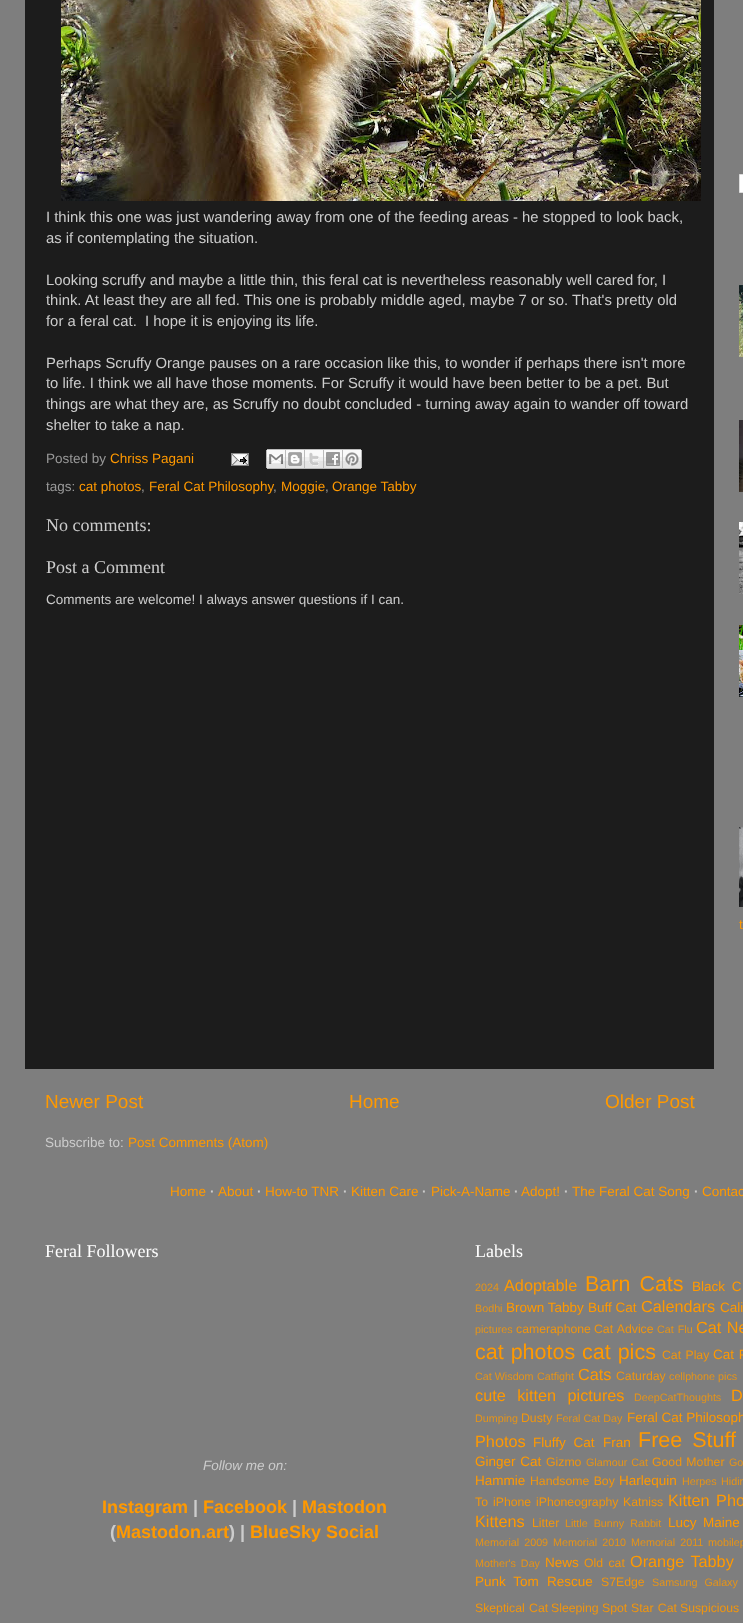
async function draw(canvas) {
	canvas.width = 743;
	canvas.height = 1623;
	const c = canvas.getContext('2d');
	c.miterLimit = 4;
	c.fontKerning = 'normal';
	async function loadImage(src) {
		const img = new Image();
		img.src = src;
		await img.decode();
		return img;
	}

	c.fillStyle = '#7e7e7e';
	c.fillRect(0, 0, 743, 1623);
	c.fillStyle = '#1c1c1c';
	c.fillRect(25, 0, 689, 1069);
	c.drawImage(await loadImage('img1.png'), 61, 0, 640, 201);
	c.font = '14.85px Liberation Sans';
	c.fillStyle = '#ccc';
	for (const [text, x, y] of [
		['I think this one was just wandering away from one of the feeding areas - he stopped to look back,', 46, 222],
		['as if contemplating the situation.', 46, 243],
		['Looking scruffy and maybe a little thin, this feral cat is nevertheless reasonably well cared for, I', 46, 285],
		['think. At least they are all fed. This one is probably middle aged, maybe 7 or so. That\'s pretty old', 46, 305],
		['for a feral cat.  I hope it is enjoying its life.', 46, 326],
		['Perhaps Scruffy Orange pauses on a rare occasion like this, to wonder if perhaps there isn\'t more', 46, 368],
		['to life. I think we all have those moments. For Scruffy it would have been better to be a pet. But', 46, 388],
		['things are what they are, as Scruffy no doubt concluded - turning away again to wander off toward', 46, 409],
		['shelter to take a nap.', 46, 430],
	]) {
		c.fillText(text, x, y);
	}
	c.font = '13.5px Liberation Sans';
	c.fillStyle = '#999';
	c.fillText('Posted by', 46, 463);
	c.fillStyle = '#f90';
	c.fillText('Chriss Pagani', 110, 463);
	c.drawImage(await loadImage('img2.png'), 231, 453, 18, 13);
	c.drawImage(await loadImage('img3.png'), 266, 449, 20, 20);
	c.drawImage(await loadImage('img4.png'), 286, 449, 19, 20);
	c.drawImage(await loadImage('img5.png'), 305, 449, 19, 20);
	c.drawImage(await loadImage('img6.png'), 324, 449, 19, 20);
	c.drawImage(await loadImage('img7.png'), 343, 449, 19, 20);
	c.fillStyle = '#999';
	c.fillText('tags:', 46, 491);
	c.fillStyle = '#f90';
	c.fillText('cat photos', 79, 491);
	c.fillStyle = '#999';
	c.fillText(',', 141, 491);
	c.fillStyle = '#f90';
	c.fillText('Feral Cat Philosophy', 149, 491);
	c.fillStyle = '#999';
	c.fillText(',', 273, 491);
	c.fillStyle = '#f90';
	c.fillText('Moggie', 281, 491);
	c.fillStyle = '#999';
	c.fillText(',', 325, 491);
	c.fillStyle = '#f90';
	c.fillText('Orange Tabby', 332, 491);
	c.font = '18px Liberation Serif';
	c.fillStyle = '#ccc';
	c.fillText('No comments:', 46, 531);
	c.fillText('Post a Comment', 46, 573);
	c.font = '13.5px Liberation Sans';
	c.fillText('Comments are welcome! I always answer questions if I can.', 46, 604);
	c.font = '19px Liberation Sans';
	c.fillStyle = '#f90';
	for (const [text, x, y] of [
		['Newer Post', 45, 1108],
		['Home', 349, 1108],
		['Older Post', 605, 1108],
	]) {
		c.fillText(text, x, y);
	}
	c.font = '13.5px Liberation Sans';
	c.fillStyle = '#ccc';
	c.fillText('Subscribe to:', 45, 1147);
	c.fillStyle = '#f90';
	c.fillText('Post Comments (Atom)', 128, 1147);
	c.fillStyle = '#fff';
	c.beginPath();
	c.rect(739.5, 174.5, 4, 18);
	c.fill();
	c.strokeStyle = '#ddd';
	c.stroke();
	c.drawImage(await loadImage('img8.png'), 739, 285, 4, 72);
	c.drawImage(await loadImage('img9.png'), 739, 420, 4, 72);
	c.drawImage(await loadImage('img10.png'), 739, 522, 4, 72);
	c.drawImage(await loadImage('img11.png'), 739, 625, 4, 72);
	c.drawImage(await loadImage('img12.png'), 739, 827, 4, 80);
	c.fillStyle = '#f90';
	c.fillText('t', 739, 929);
	c.fillText('Home', 170, 1196);
	c.font = 'bold 13.5px Liberation Sans';
	c.fillStyle = '#ccc';
	c.fillText('·', 210, 1196);
	c.font = '13.5px Liberation Sans';
	c.fillStyle = '#f90';
	c.fillText('About', 218, 1196);
	c.font = 'bold 13.5px Liberation Sans';
	c.fillStyle = '#ccc';
	c.fillText('·', 257, 1196);
	c.font = '13.5px Liberation Sans';
	c.fillStyle = '#f90';
	c.fillText('How-to TNR', 265, 1196);
	c.font = 'bold 13.5px Liberation Sans';
	c.fillStyle = '#ccc';
	c.fillText('·', 343, 1196);
	c.font = '13.5px Liberation Sans';
	c.fillStyle = '#f90';
	c.fillText('Kitten Care', 351, 1196);
	c.font = 'bold 13.5px Liberation Sans';
	c.fillStyle = '#ccc';
	c.fillText('·', 422, 1196);
	c.font = '13.5px Liberation Sans';
	c.fillStyle = '#f90';
	c.fillText('Pick-A-Name', 431, 1196);
	c.font = 'bold 13.5px Liberation Sans';
	c.fillStyle = '#ccc';
	c.fillText('·', 514, 1196);
	c.font = '13.5px Liberation Sans';
	c.fillStyle = '#f90';
	c.fillText('Adopt!', 521, 1196);
	c.font = 'bold 13.5px Liberation Sans';
	c.fillStyle = '#ccc';
	c.fillText('·', 564, 1196);
	c.font = '13.5px Liberation Sans';
	c.fillStyle = '#f90';
	c.fillText('The Feral Cat Song', 572, 1196);
	c.font = 'bold 13.5px Liberation Sans';
	c.fillStyle = '#ccc';
	c.fillText('·', 694, 1196);
	c.font = '13.5px Liberation Sans';
	c.fillStyle = '#f90';
	c.fillText('Contac', 702, 1196);
	c.font = '18px Liberation Serif';
	c.fillStyle = '#fff';
	c.fillText('Feral Followers', 45, 1257);
	c.font = 'italic 13.5px Liberation Sans';
	c.fillStyle = '#ccc';
	c.fillText('Follow me on:', 203, 1470);
	c.font = 'bold 18px Liberation Sans';
	c.fillStyle = '#f90';
	c.fillText('Instagram', 102, 1513);
	c.fillStyle = '#ccc';
	c.fillText('|', 193, 1513);
	c.fillStyle = '#f90';
	c.fillText('Facebook', 203, 1513);
	c.fillStyle = '#ccc';
	c.fillText('|', 292, 1513);
	c.fillStyle = '#f90';
	c.fillText('Mastodon', 302, 1513);
	c.fillStyle = '#ccc';
	c.fillText('(', 110, 1538);
	c.fillStyle = '#f90';
	c.fillText('Mastodon.art', 116, 1538);
	c.fillStyle = '#ccc';
	c.fillText(') |', 229, 1538);
	c.fillStyle = '#f90';
	c.fillText('BlueSky Social', 250, 1538);
	c.font = '18px Liberation Serif';
	c.fillStyle = '#fff';
	c.fillText('Labels', 475, 1257);
	c.font = '10.75px Liberation Sans';
	c.fillStyle = '#e59419';
	c.fillText('2024', 475, 1291);
	c.font = '16.25px Liberation Sans';
	c.fillStyle = '#f90';
	c.fillText('Adoptable', 504, 1291);
	c.wordSpacing = '3px';
	c.font = '21.5px Liberation Sans';
	c.fillText('Barn Cats', 585, 1291);
	c.font = '13.5px Liberation Sans';
	c.fillText('Black C', 692, 1291);
	c.wordSpacing = '0px';
	c.font = '10.75px Liberation Sans';
	c.fillStyle = '#e59419';
	c.fillText('Bodhi', 475, 1312);
	c.font = '13.5px Liberation Sans';
	c.fillStyle = '#f90';
	c.fillText('Brown Tabby', 506, 1312);
	c.fillText('Buff Cat', 588, 1312);
	c.font = '16.25px Liberation Sans';
	c.fillText('Calendars', 641, 1312);
	c.font = '13.5px Liberation Sans';
	c.fillText('Cali', 720, 1312);
	c.font = '10.75px Liberation Sans';
	c.fillStyle = '#e59419';
	c.fillText('pictures', 475, 1333);
	c.font = '12.25px Liberation Sans';
	c.fillStyle = '#f2960d';
	c.fillText('cameraphone', 516, 1333);
	c.wordSpacing = '1px';
	c.fillText('Cat Advice', 594, 1333);
	c.font = '10.75px Liberation Sans';
	c.fillStyle = '#e59419';
	c.fillText('Cat Flu', 657, 1333);
	c.font = '16.25px Liberation Sans';
	c.fillStyle = '#f90';
	c.fillText('Cat Ne', 696, 1333);
	c.font = '21.5px Liberation Sans';
	c.fillText('cat photos', 475, 1359);
	c.fillText('cat pics', 582, 1359);
	c.font = '12.25px Liberation Sans';
	c.fillStyle = '#f2960d';
	c.fillText('Cat Play', 662, 1359);
	c.font = '13.5px Liberation Sans';
	c.fillStyle = '#f90';
	c.fillText('Cat P', 713, 1359);
	c.wordSpacing = '0px';
	c.font = '10.75px Liberation Sans';
	c.fillStyle = '#e59419';
	c.fillText('Cat Wisdom', 475, 1380);
	c.fillText('Catfight', 537, 1380);
	c.font = '16.25px Liberation Sans';
	c.fillStyle = '#f90';
	c.fillText('Cats', 578, 1380);
	c.font = '12.25px Liberation Sans';
	c.fillStyle = '#f2960d';
	c.fillText('Caturday', 616, 1380);
	c.font = '10.75px Liberation Sans';
	c.fillStyle = '#e59419';
	c.fillText('cellphone pics', 669, 1380);
	c.wordSpacing = '7px';
	c.font = '16.25px Liberation Sans';
	c.fillStyle = '#f90';
	c.fillText('cute kitten pictures', 475, 1401);
	c.wordSpacing = '0px';
	c.font = '10.75px Liberation Sans';
	c.fillStyle = '#e59419';
	c.fillText('DeepCatThoughts', 634, 1401);
	c.wordSpacing = '7px';
	c.font = '16.25px Liberation Sans';
	c.fillStyle = '#f90';
	c.fillText('D', 731, 1401);
	c.wordSpacing = '0px';
	c.font = '10.75px Liberation Sans';
	c.fillStyle = '#e59419';
	c.fillText('Dumping', 475, 1422);
	c.font = '12.25px Liberation Sans';
	c.fillStyle = '#f2960d';
	c.fillText('Dusty', 521, 1422);
	c.font = '10.75px Liberation Sans';
	c.fillStyle = '#e59419';
	c.fillText('Feral Cat Day', 556, 1422);
	c.font = '13.5px Liberation Sans';
	c.fillStyle = '#f90';
	c.fillText('Feral Cat Philosoph', 627, 1422);
	c.font = '16.25px Liberation Sans';
	c.fillText('Photos', 475, 1447);
	c.wordSpacing = '4px';
	c.font = '13.5px Liberation Sans';
	c.fillText('Fluffy Cat', 533, 1447);
	c.wordSpacing = '0px';
	c.fillText('Fran', 603, 1447);
	c.wordSpacing = '4px';
	c.font = '21.5px Liberation Sans';
	c.fillText('Free Stuff', 638, 1447);
	c.wordSpacing = '1px';
	c.font = '13.5px Liberation Sans';
	c.fillText('Ginger Cat', 475, 1466);
	c.wordSpacing = '0px';
	c.font = '12.25px Liberation Sans';
	c.fillStyle = '#f2960d';
	c.fillText('Gizmo', 546, 1466);
	c.wordSpacing = '1px';
	c.font = '10.75px Liberation Sans';
	c.fillStyle = '#e59419';
	c.fillText('Glamour Cat', 586, 1466);
	c.font = '12.25px Liberation Sans';
	c.fillStyle = '#f2960d';
	c.fillText('Good Mother', 652, 1466);
	c.wordSpacing = '0px';
	c.font = '10.75px Liberation Sans';
	c.fillStyle = '#e59419';
	c.fillText('Go', 729, 1466);
	c.font = '13.5px Liberation Sans';
	c.fillStyle = '#f90';
	c.fillText('Hammie', 475, 1485);
	c.wordSpacing = '1px';
	c.font = '12.25px Liberation Sans';
	c.fillStyle = '#f2960d';
	c.fillText('Handsome Boy', 530, 1485);
	c.wordSpacing = '0px';
	c.font = '13.5px Liberation Sans';
	c.fillStyle = '#f90';
	c.fillText('Harlequin', 619, 1485);
	c.font = '10.75px Liberation Sans';
	c.fillStyle = '#e59419';
	c.fillText('Herpes', 682, 1485);
	c.wordSpacing = '1px';
	c.fillText('Hidin', 721, 1485);
	c.wordSpacing = '0px';
	c.font = '12.25px Liberation Sans';
	c.fillStyle = '#f2960d';
	for (const [text, x, y] of [
		['To', 475, 1506],
		['iPhone', 493, 1506],
		['iPhoneography', 536, 1506],
		['Katniss', 623, 1506],
	]) {
		c.fillText(text, x, y);
	}
	c.wordSpacing = '2px';
	c.font = '16.25px Liberation Sans';
	c.fillStyle = '#f90';
	c.fillText('Kitten Pho', 668, 1506);
	c.wordSpacing = '0px';
	c.fillText('Kittens', 475, 1527);
	c.font = '12.25px Liberation Sans';
	c.fillStyle = '#f2960d';
	c.fillText('Litter', 532, 1527);
	c.wordSpacing = '3px';
	c.font = '10.75px Liberation Sans';
	c.fillStyle = '#e59419';
	c.fillText('Little Bunny Rabbit', 565, 1527);
	c.wordSpacing = '0px';
	c.font = '13.5px Liberation Sans';
	c.fillStyle = '#f90';
	c.fillText('Lucy', 668, 1527);
	c.wordSpacing = '3px';
	c.fillText('Maine', 703, 1527);
	c.wordSpacing = '2px';
	c.font = '10.75px Liberation Sans';
	c.fillStyle = '#e59419';
	for (const [text, x, y] of [
		['Memorial 2009', 475, 1546],
		['Memorial 2010', 553, 1546],
		['Memorial 2011', 631, 1546],
	]) {
		c.fillText(text, x, y);
	}
	c.wordSpacing = '0px';
	c.fillText('mobilep', 708, 1546);
	c.wordSpacing = '2px';
	c.fillText('Mother\'s Day', 475, 1567);
	c.wordSpacing = '0px';
	c.font = '13.5px Liberation Sans';
	c.fillStyle = '#f90';
	c.fillText('News', 545, 1567);
	c.wordSpacing = '2px';
	c.font = '12.25px Liberation Sans';
	c.fillStyle = '#f2960d';
	c.fillText('Old cat', 584, 1567);
	c.font = '16.25px Liberation Sans';
	c.fillStyle = '#f90';
	c.fillText('Orange Tabby', 630, 1567);
	c.wordSpacing = '4px';
	c.font = '13.5px Liberation Sans';
	c.fillText('Punk Tom', 475, 1586);
	c.wordSpacing = '0px';
	c.fillText('Rescue', 547, 1586);
	c.font = '12.25px Liberation Sans';
	c.fillStyle = '#f2960d';
	c.fillText('S7Edge', 601, 1586);
	c.wordSpacing = '4px';
	c.font = '10.75px Liberation Sans';
	c.fillStyle = '#e59419';
	c.fillText('Samsung Galaxy', 652, 1586);
	c.wordSpacing = '1px';
	c.font = '12.25px Liberation Sans';
	c.fillStyle = '#f2960d';
	c.fillText('Skeptical Cat', 475, 1612);
	c.wordSpacing = '0px';
	c.fillText('Sleeping', 551, 1612);
	c.fillText('Spot', 602, 1612);
	c.wordSpacing = '1px';
	c.fillText('Star Cat', 631, 1612);
	c.fillText('Suspicious', 680, 1612);
}

draw(document.querySelector('canvas'));
